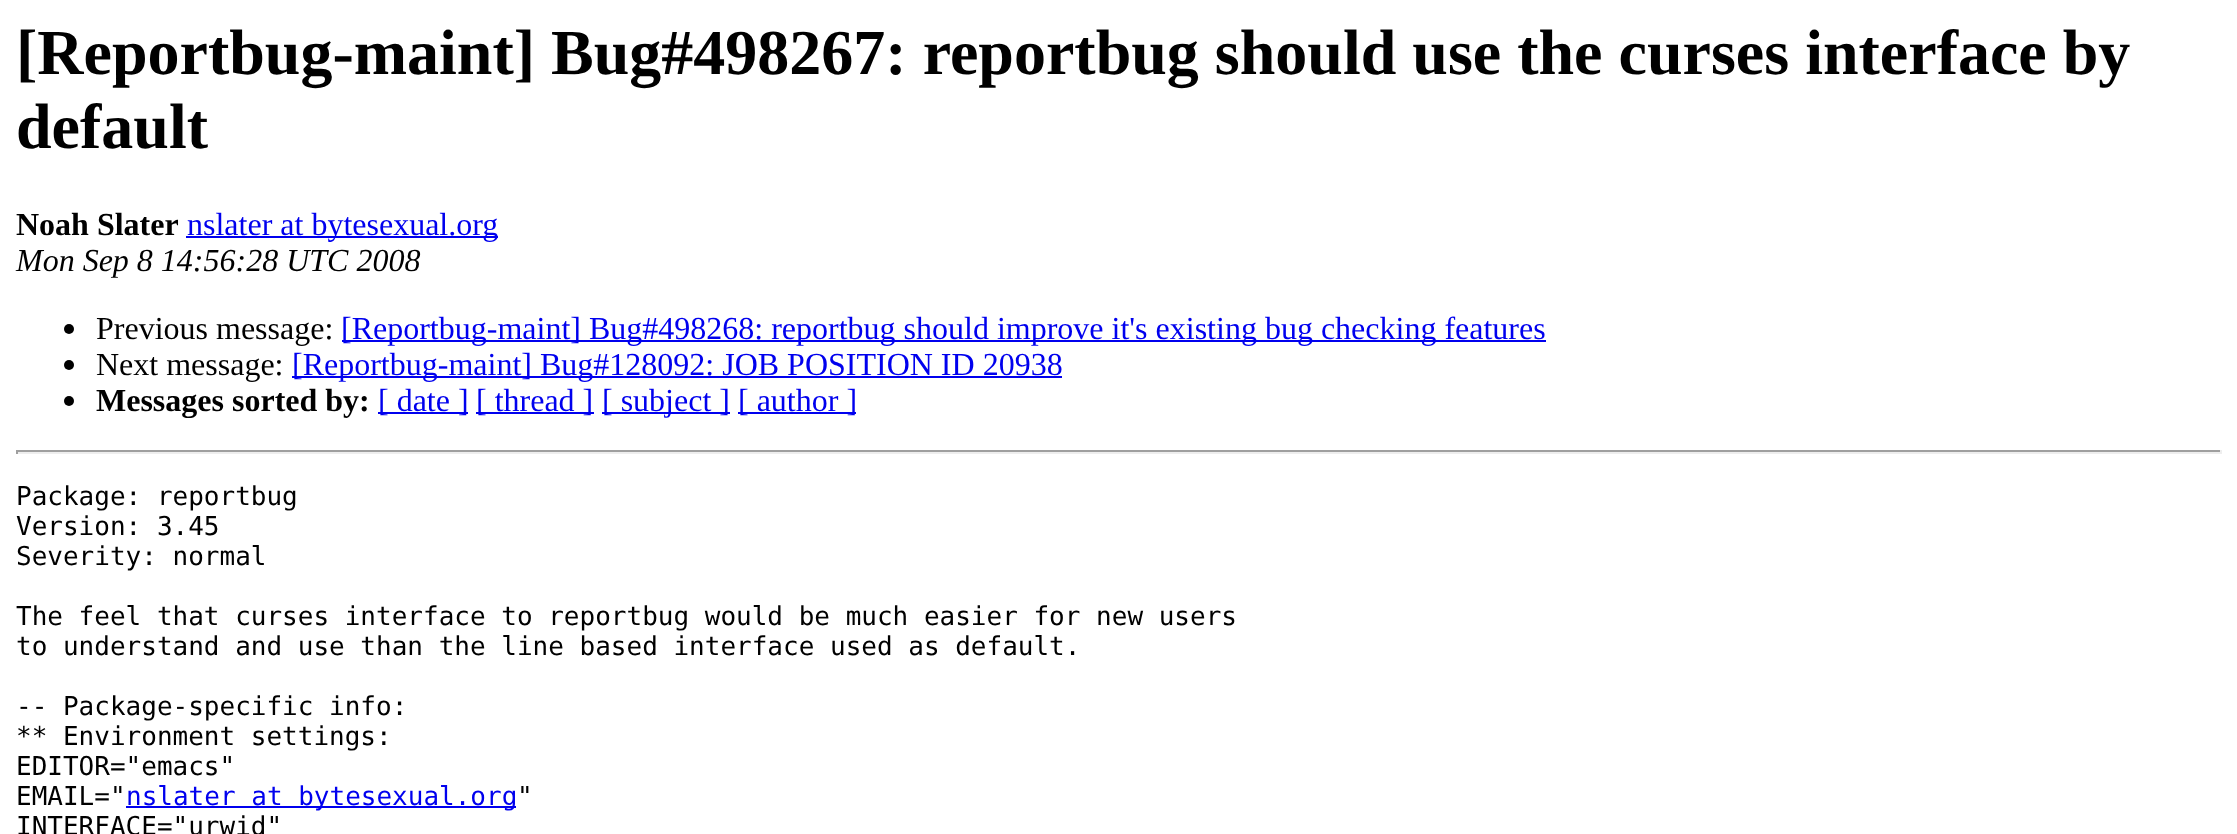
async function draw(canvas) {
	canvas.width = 2237;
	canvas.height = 834;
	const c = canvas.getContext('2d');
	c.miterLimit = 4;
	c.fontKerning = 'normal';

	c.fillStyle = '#fff';
	c.fillRect(0, 0, 2237, 834);
	c.font = 'bold 64px Liberation Serif';
	c.fillStyle = '#000';
	c.fillText('[Reportbug-maint] Bug#498267: reportbug should use the curses interface by', 16, 74);
	c.fillText('default', 16, 148);
	c.font = 'bold 32px Liberation Serif';
	c.fillText('Noah Slater', 16, 235);
	c.fillStyle = '#00e';
	c.fillRect(186, 236, 312, 2);
	c.font = '32px Liberation Serif';
	c.fillText('nslater at bytesexual.org', 187, 235);
	c.font = 'italic 32px Liberation Serif';
	c.fillStyle = '#000';
	c.fillText('Mon Sep 8 14:56:28 UTC 2008', 16, 271);
	c.beginPath();
	c.arc(69, 329, 5, 0, 2 * Math.PI);
	c.fill();
	c.font = '32px Liberation Serif';
	c.fillText('Previous message:', 96, 339);
	c.fillStyle = '#00e';
	c.fillRect(342, 340, 1204, 2);
	c.fillText('[Reportbug-maint] Bug#498268: reportbug should improve it\'s existing bug checking features', 341, 339);
	c.fillStyle = '#000';
	c.beginPath();
	c.arc(69, 365, 5, 0, 2 * Math.PI);
	c.fill();
	c.fillText('Next message:', 96, 375);
	c.fillStyle = '#00e';
	c.fillRect(292, 376, 770, 2);
	c.fillText('[Reportbug-maint] Bug#128092: JOB POSITION ID 20938', 292, 375);
	c.fillStyle = '#000';
	c.beginPath();
	c.arc(69, 401, 5, 0, 2 * Math.PI);
	c.fill();
	c.font = 'bold 32px Liberation Serif';
	c.fillText('Messages sorted by:', 96, 411);
	c.fillStyle = '#00e';
	c.fillRect(378, 412, 90, 2);
	c.font = '32px Liberation Serif';
	c.fillText('[ date ]', 378, 411);
	c.fillRect(476, 412, 118, 2);
	c.fillText('[ thread ]', 476, 411);
	c.fillRect(602, 412, 128, 2);
	c.fillText('[ subject ]', 602, 411);
	c.fillRect(738, 412, 118, 2);
	c.fillText('[ author ]', 738, 411);
	for (const [x, y, w, h, color] of [
		[16, 450, 2206, 2, '#9f9f9f'],
		[2220, 450, 2, 4, '#eee'],
		[16, 452, 2206, 2, '#eee'],
		[16, 450, 2, 4, '#9f9f9f'],
	]) {
		c.fillStyle = color;
		c.fillRect(x, y, w, h);
	}
	c.font = '26px DejaVu Sans Mono';
	c.fillStyle = '#000';
	for (const [text, x, y] of [
		['Package: reportbug', 16, 505],
		['Version: 3.45', 16, 535],
		['Severity: normal', 16, 565],
		['The feel that curses interface to reportbug would be much easier for new users', 16, 625],
		['to understand and use than the line based interface used as default.', 16, 655],
		['-- Package-specific info:', 16, 715],
		['** Environment settings:', 16, 745],
		['EDITOR="emacs"', 16, 775],
		['EMAIL="', 16, 805],
	]) {
		c.fillText(text, x, y);
	}
	c.fillStyle = '#00e';
	c.fillRect(126, 806, 390, 2);
	c.fillText('nslater at bytesexual.org', 126, 805);
	c.fillStyle = '#000';
	c.fillText('"', 517, 805);
	c.fillText('INTERFACE="urwid"', 16, 835);
}

draw(document.querySelector('canvas'));
